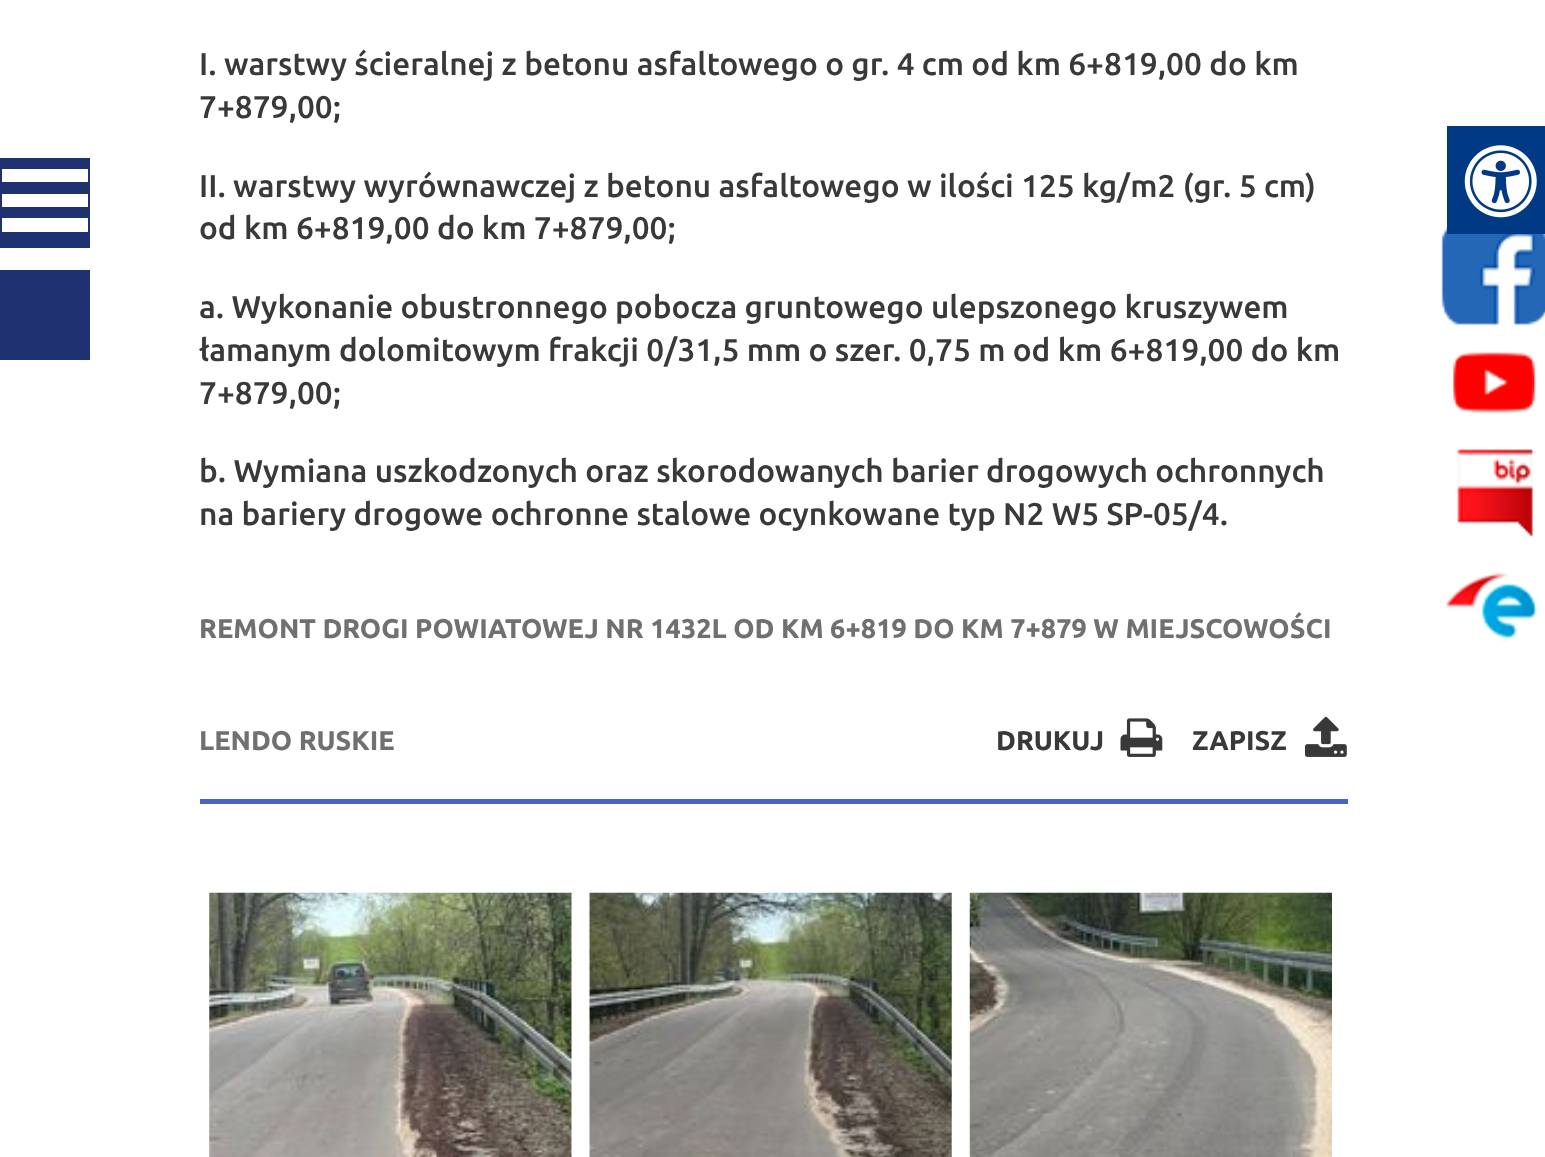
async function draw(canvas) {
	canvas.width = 1545;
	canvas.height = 1157;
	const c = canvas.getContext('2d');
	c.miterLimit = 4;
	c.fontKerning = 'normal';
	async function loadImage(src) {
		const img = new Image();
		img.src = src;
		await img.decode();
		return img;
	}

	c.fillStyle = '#fff';
	c.fillRect(0, 0, 1545, 1157);
	for (const [x, y, w, h, color] of [
		[0, 158, 90, 90, '#1f3071'],
		[2, 169, 86, 13, '#fff'],
		[2, 194, 86, 13, '#fff'],
		[2, 218, 86, 14, '#fff'],
		[0, 270, 90, 90, '#1f3071'],
	]) {
		c.fillStyle = color;
		c.fillRect(x, y, w, h);
	}
	c.font = '500 31.5px Ubuntu';
	c.fillStyle = '#393939';
	for (const [text, x, y] of [
		['I. warstwy ścieralnej z betonu asfaltowego o gr. 4 cm od km 6+819,00 do km', 199, 75],
		['7+879,00;', 199, 118],
		['II. warstwy wyrównawczej z betonu asfaltowego w ilości 125 kg/m2 (gr. 5 cm)', 199, 197],
		['od km 6+819,00 do km 7+879,00;', 199, 239],
		['a. Wykonanie obustronnego pobocza gruntowego ulepszonego kruszywem', 199, 318],
		['łamanym dolomitowym frakcji 0/31,5 mm o szer. 0,75 m od km 6+819,00 do km', 199, 361],
		['7+879,00;', 199, 404],
		['b. Wymiana uszkodzonych oraz skorodowanych barier drogowych ochronnych', 199, 482],
		['na bariery drogowe ochronne stalowe ocynkowane typ N2 W5 SP-05/4.', 199, 525],
	]) {
		c.fillText(text, x, y);
	}
	c.fillStyle = '#4b64c3';
	c.fillRect(200, 799, 1148, 5);
	c.font = 'bold 27px Ubuntu';
	c.fillStyle = '#707070';
	c.fillText('REMONT DROGI POWIATOWEJ NR 1432L OD KM 6+819 DO KM 7+879 W MIEJSCOWOŚCI', 199, 638);
	c.fillText('LENDO RUSKIE', 199, 750);
	c.fillStyle = '#393939';
	c.fillText('DRUKUJ', 996, 750);
	c.drawImage(await loadImage('img1.png'), 1120, 718, 43, 39);
	c.fillText('ZAPISZ', 1192, 750);
	c.drawImage(await loadImage('img2.png'), 1305, 716, 42, 41);
	c.drawImage(await loadImage('img3.png'), 209, 892, 363, 265);
	c.drawImage(await loadImage('img4.png'), 589, 892, 363, 265);
	c.drawImage(await loadImage('img5.png'), 969, 892, 363, 265);
	c.drawImage(await loadImage('img7.png'), 1441, 226, 104, 100);
	c.fillStyle = '#003984';
	c.fillRect(1447, 126, 98, 108);
	c.drawImage(await loadImage('img6.png'), 1464, 145, 73, 73);
	c.drawImage(await loadImage('img8.png'), 1453, 352, 83, 61);
	c.drawImage(await loadImage('img9.png'), 1457, 449, 76, 88);
	c.drawImage(await loadImage('img10.png'), 1446, 572, 92, 70);
}

draw(document.querySelector('canvas'));
